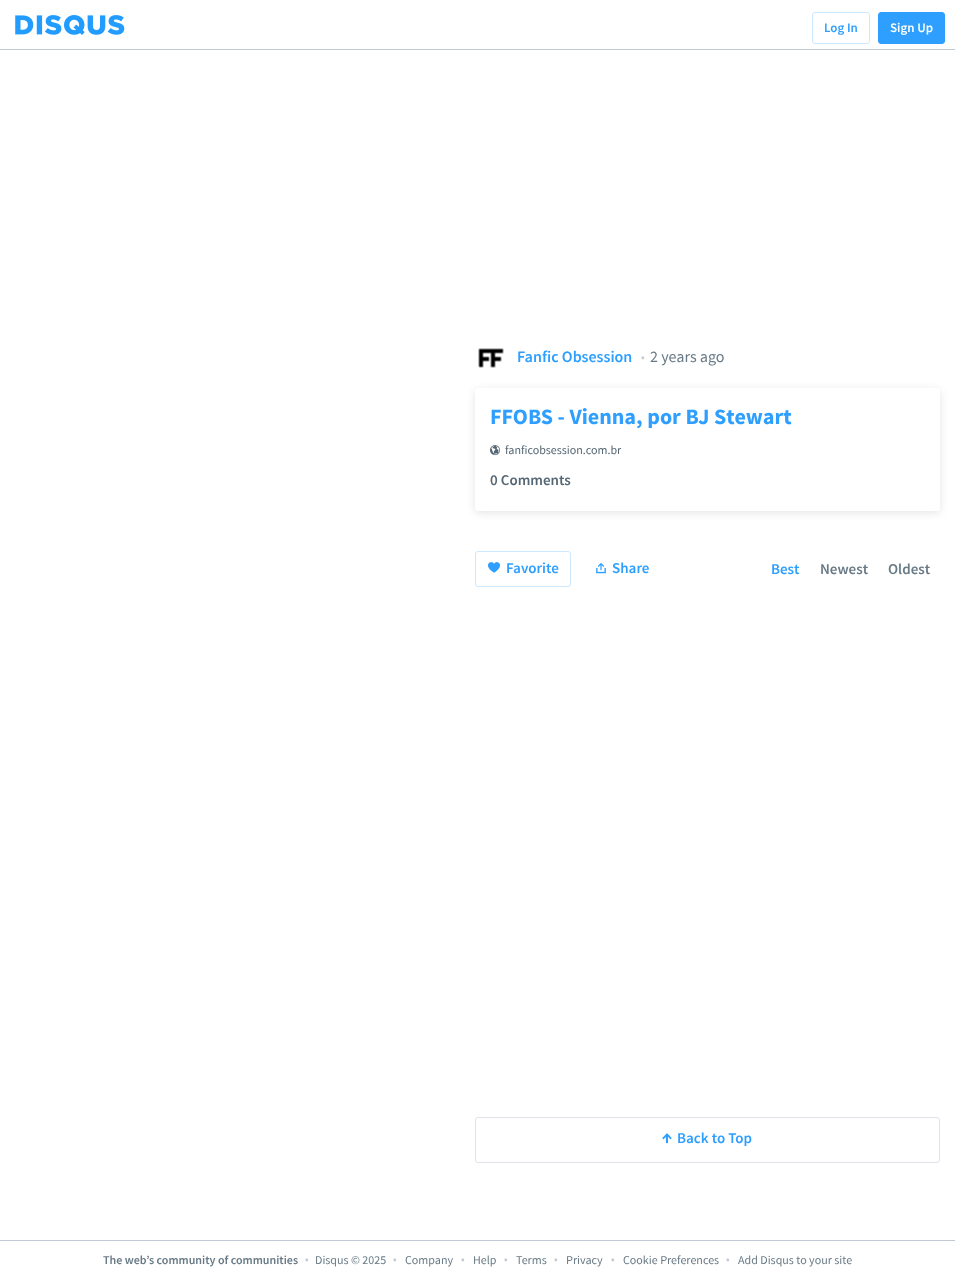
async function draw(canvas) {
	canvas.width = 955;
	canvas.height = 1279;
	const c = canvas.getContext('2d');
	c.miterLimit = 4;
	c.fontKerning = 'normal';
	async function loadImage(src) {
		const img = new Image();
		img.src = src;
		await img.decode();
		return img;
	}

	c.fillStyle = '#fff';
	c.fillRect(0, 0, 955, 1279);
	c.fillStyle = '#c2c9d4';
	c.fillRect(0, 49, 955, 1);
	c.drawImage(await loadImage('img1.png'), 15, 15, 110, 20);
	c.beginPath();
	c.roundRect(812.5, 12.5, 57, 31, 2.5);
	c.strokeStyle = '#cce9ff';
	c.stroke();
	c.font = '600 13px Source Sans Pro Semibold';
	c.fillStyle = '#2e9fff';
	c.fillText('Log In', 824, 32);
	c.beginPath();
	c.roundRect(878.5, 12.5, 66, 31, 2.5);
	c.fill();
	c.strokeStyle = '#2e9fff';
	c.stroke();
	c.fillStyle = '#fff';
	c.fillText('Sign Up', 890, 32);
	c.drawImage(await loadImage('img2.png'), 478, 348, 26, 20);
	c.font = '600 16px Source Sans Pro Semibold';
	c.fillStyle = '#2e9fff';
	c.fillText('Fanfic Obsession', 517, 362);
	c.font = '12px Source Sans Pro';
	c.fillStyle = '#c2c9d4';
	c.fillText('•', 641, 361);
	c.font = '16px Source Sans Pro';
	c.fillStyle = '#687a86';
	c.fillText('2 years ago', 650, 362);
	c.fillStyle = '#0000001a';
	c.filter = 'blur(4px)';
	c.beginPath();
	c.roundRect(475, 390, 465, 123, 3);
	c.fill();
	c.filter = 'none';
	c.fillStyle = '#fff';
	c.beginPath();
	c.roundRect(475, 388, 465, 123, 3);
	c.fill();
	c.font = 'bold 22px Source Sans Pro';
	c.fillStyle = '#2e9fff';
	c.fillText('FFOBS - Vienna, por BJ Stewart', 490, 424);
	c.drawImage(await loadImage('img3.png'), 490, 445, 10, 11);
	c.font = '12px Source Sans Pro';
	c.fillStyle = '#546673';
	c.fillText('fanficobsession.com.br', 505, 454);
	c.font = '600 15px Source Sans Pro Semibold';
	c.fillText('0 Comments', 490, 485);
	c.beginPath();
	c.roundRect(475.5, 551.5, 95, 35, 2.5);
	c.strokeStyle = '#cce9ff';
	c.stroke();
	c.drawImage(await loadImage('img4.png'), 488, 562, 12, 11);
	c.fillStyle = '#2e9fff';
	c.fillText('Favorite', 506, 573);
	c.drawImage(await loadImage('img5.png'), 596, 563, 10, 11);
	c.fillText('Share', 612, 573);
	c.fillText('Best', 771, 574);
	c.fillStyle = '#687a86';
	c.fillText('Newest', 820, 574);
	c.fillText('Oldest', 888, 574);
	c.beginPath();
	c.roundRect(475.5, 1117.5, 464, 45, 2.5);
	c.strokeStyle = '#e0e3e9';
	c.stroke();
	c.drawImage(await loadImage('img6.png'), 662, 1133, 10, 11);
	c.fillStyle = '#2e9fff';
	c.fillText('Back to Top', 677, 1143);
	c.fillStyle = '#c2c9d4';
	c.fillRect(0, 1240, 955, 1);
	c.font = '600 12px Source Sans Pro Semibold';
	c.fillStyle = '#687a86';
	c.fillText('The web’s community of communities', 103, 1264);
	c.font = '12px Source Sans Pro';
	c.fillStyle = '#c2c9d4';
	c.fillText('•', 305, 1263);
	c.fillStyle = '#687a86';
	c.fillText('Disqus © 2025', 315, 1264);
	c.fillStyle = '#c2c9d4';
	c.fillText('•', 393, 1263);
	c.fillStyle = '#687a86';
	c.fillText('Company', 405, 1264);
	c.fillStyle = '#c2c9d4';
	c.fillText('•', 461, 1263);
	c.fillStyle = '#687a86';
	c.fillText('Help', 473, 1264);
	c.fillStyle = '#c2c9d4';
	c.fillText('•', 504, 1263);
	c.fillStyle = '#687a86';
	c.fillText('Terms', 516, 1264);
	c.fillStyle = '#c2c9d4';
	c.fillText('•', 554, 1263);
	c.fillStyle = '#687a86';
	c.fillText('Privacy', 566, 1264);
	c.fillStyle = '#c2c9d4';
	c.fillText('•', 611, 1263);
	c.fillStyle = '#687a86';
	c.fillText('Cookie Preferences', 623, 1264);
	c.fillStyle = '#c2c9d4';
	c.fillText('•', 726, 1263);
	c.fillStyle = '#687a86';
	c.fillText('Add Disqus to your site', 738, 1264);
}

draw(document.querySelector('canvas'));
